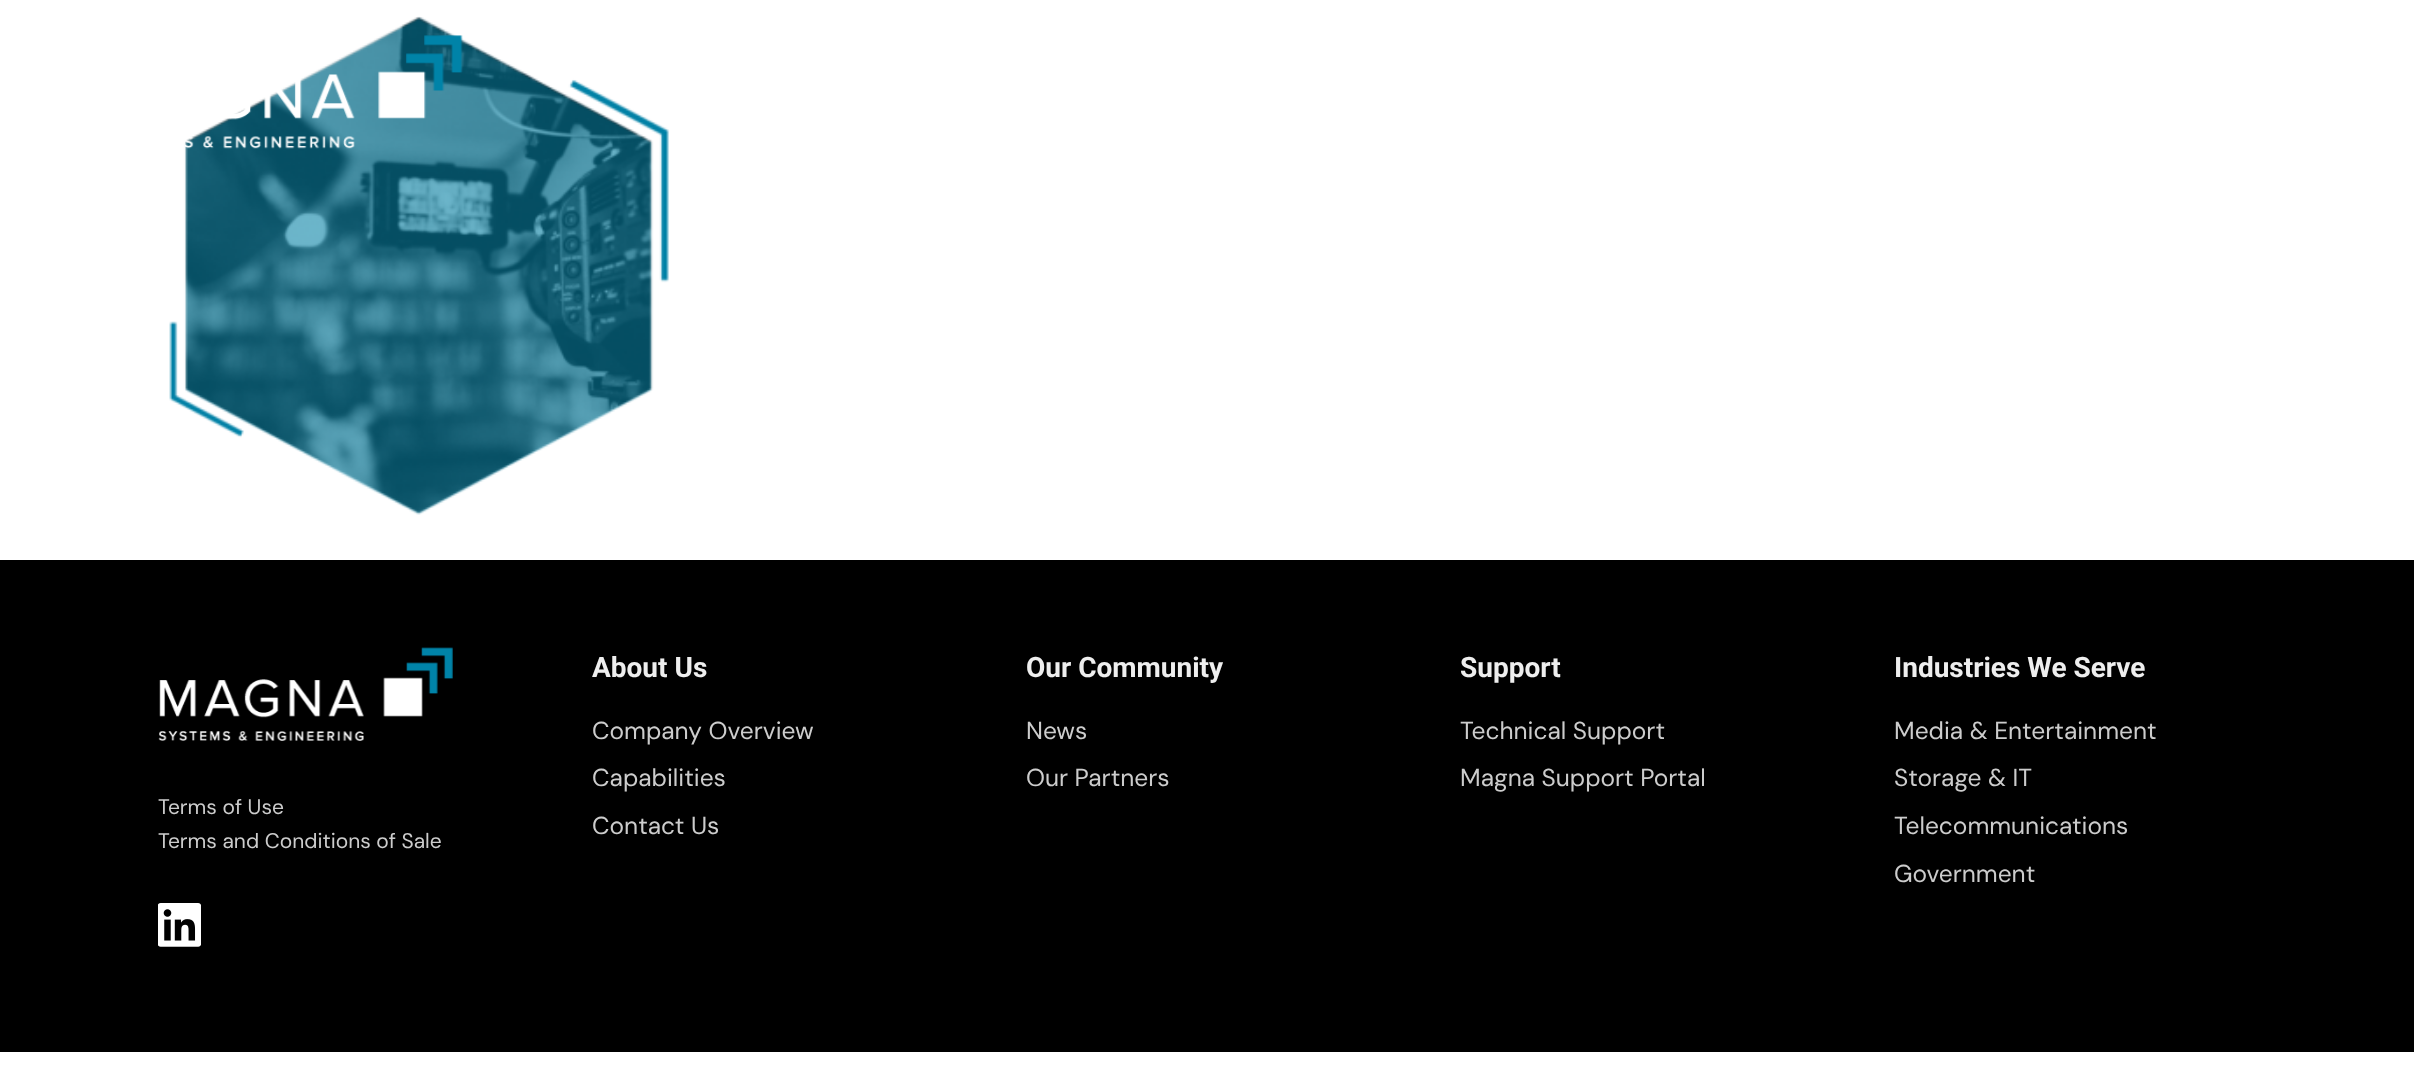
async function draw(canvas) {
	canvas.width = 2414;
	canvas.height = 1066;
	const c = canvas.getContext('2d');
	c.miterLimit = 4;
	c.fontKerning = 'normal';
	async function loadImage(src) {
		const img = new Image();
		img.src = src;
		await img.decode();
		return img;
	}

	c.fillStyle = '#fff';
	c.fillRect(0, 0, 2414, 1066);
	c.drawImage(await loadImage('img1.png'), 169, 16, 500, 499);
	c.drawImage(await loadImage('img2.png'), 185, 35, 278, 114);
	c.fillStyle = '#000';
	c.fillRect(0, 560, 2414, 492);
	c.drawImage(await loadImage('img3.png'), 158, 647, 295, 94);
	c.font = '21px DM Sans';
	c.fillStyle = '#ccc';
	c.fillText('Terms of Use', 158, 814);
	c.fillText('Terms and Conditions of Sale', 158, 848);
	c.drawImage(await loadImage('img4.png'), 158, 903, 43, 44);
	c.font = 'bold 28px Roboto';
	c.fillStyle = '#eee';
	c.fillText('About Us', 592, 677);
	c.font = '24.5px DM Sans';
	c.fillStyle = '#ccc';
	for (const [text, x, y] of [
		['Company Overview', 592, 739],
		['Capabilities', 592, 786],
		['Contact Us', 592, 834],
	]) {
		c.fillText(text, x, y);
	}
	c.font = 'bold 28px Roboto';
	c.fillStyle = '#eee';
	c.fillText('Our Community', 1026, 677);
	c.font = '24.5px DM Sans';
	c.fillStyle = '#ccc';
	c.fillText('News', 1026, 739);
	c.fillText('Our Partners', 1026, 786);
	c.font = 'bold 28px Roboto';
	c.fillStyle = '#eee';
	c.fillText('Support', 1460, 677);
	c.font = '24.5px DM Sans';
	c.fillStyle = '#ccc';
	c.fillText('Technical Support', 1460, 739);
	c.fillText('Magna Support Portal', 1460, 786);
	c.font = 'bold 28px Roboto';
	c.fillStyle = '#eee';
	c.fillText('Industries We Serve', 1894, 677);
	c.font = '24.5px DM Sans';
	c.fillStyle = '#ccc';
	for (const [text, x, y] of [
		['Media & Entertainment', 1894, 739],
		['Storage & IT', 1894, 786],
		['Telecommunications', 1894, 834],
		['Government', 1894, 882],
	]) {
		c.fillText(text, x, y);
	}
}

draw(document.querySelector('canvas'));
